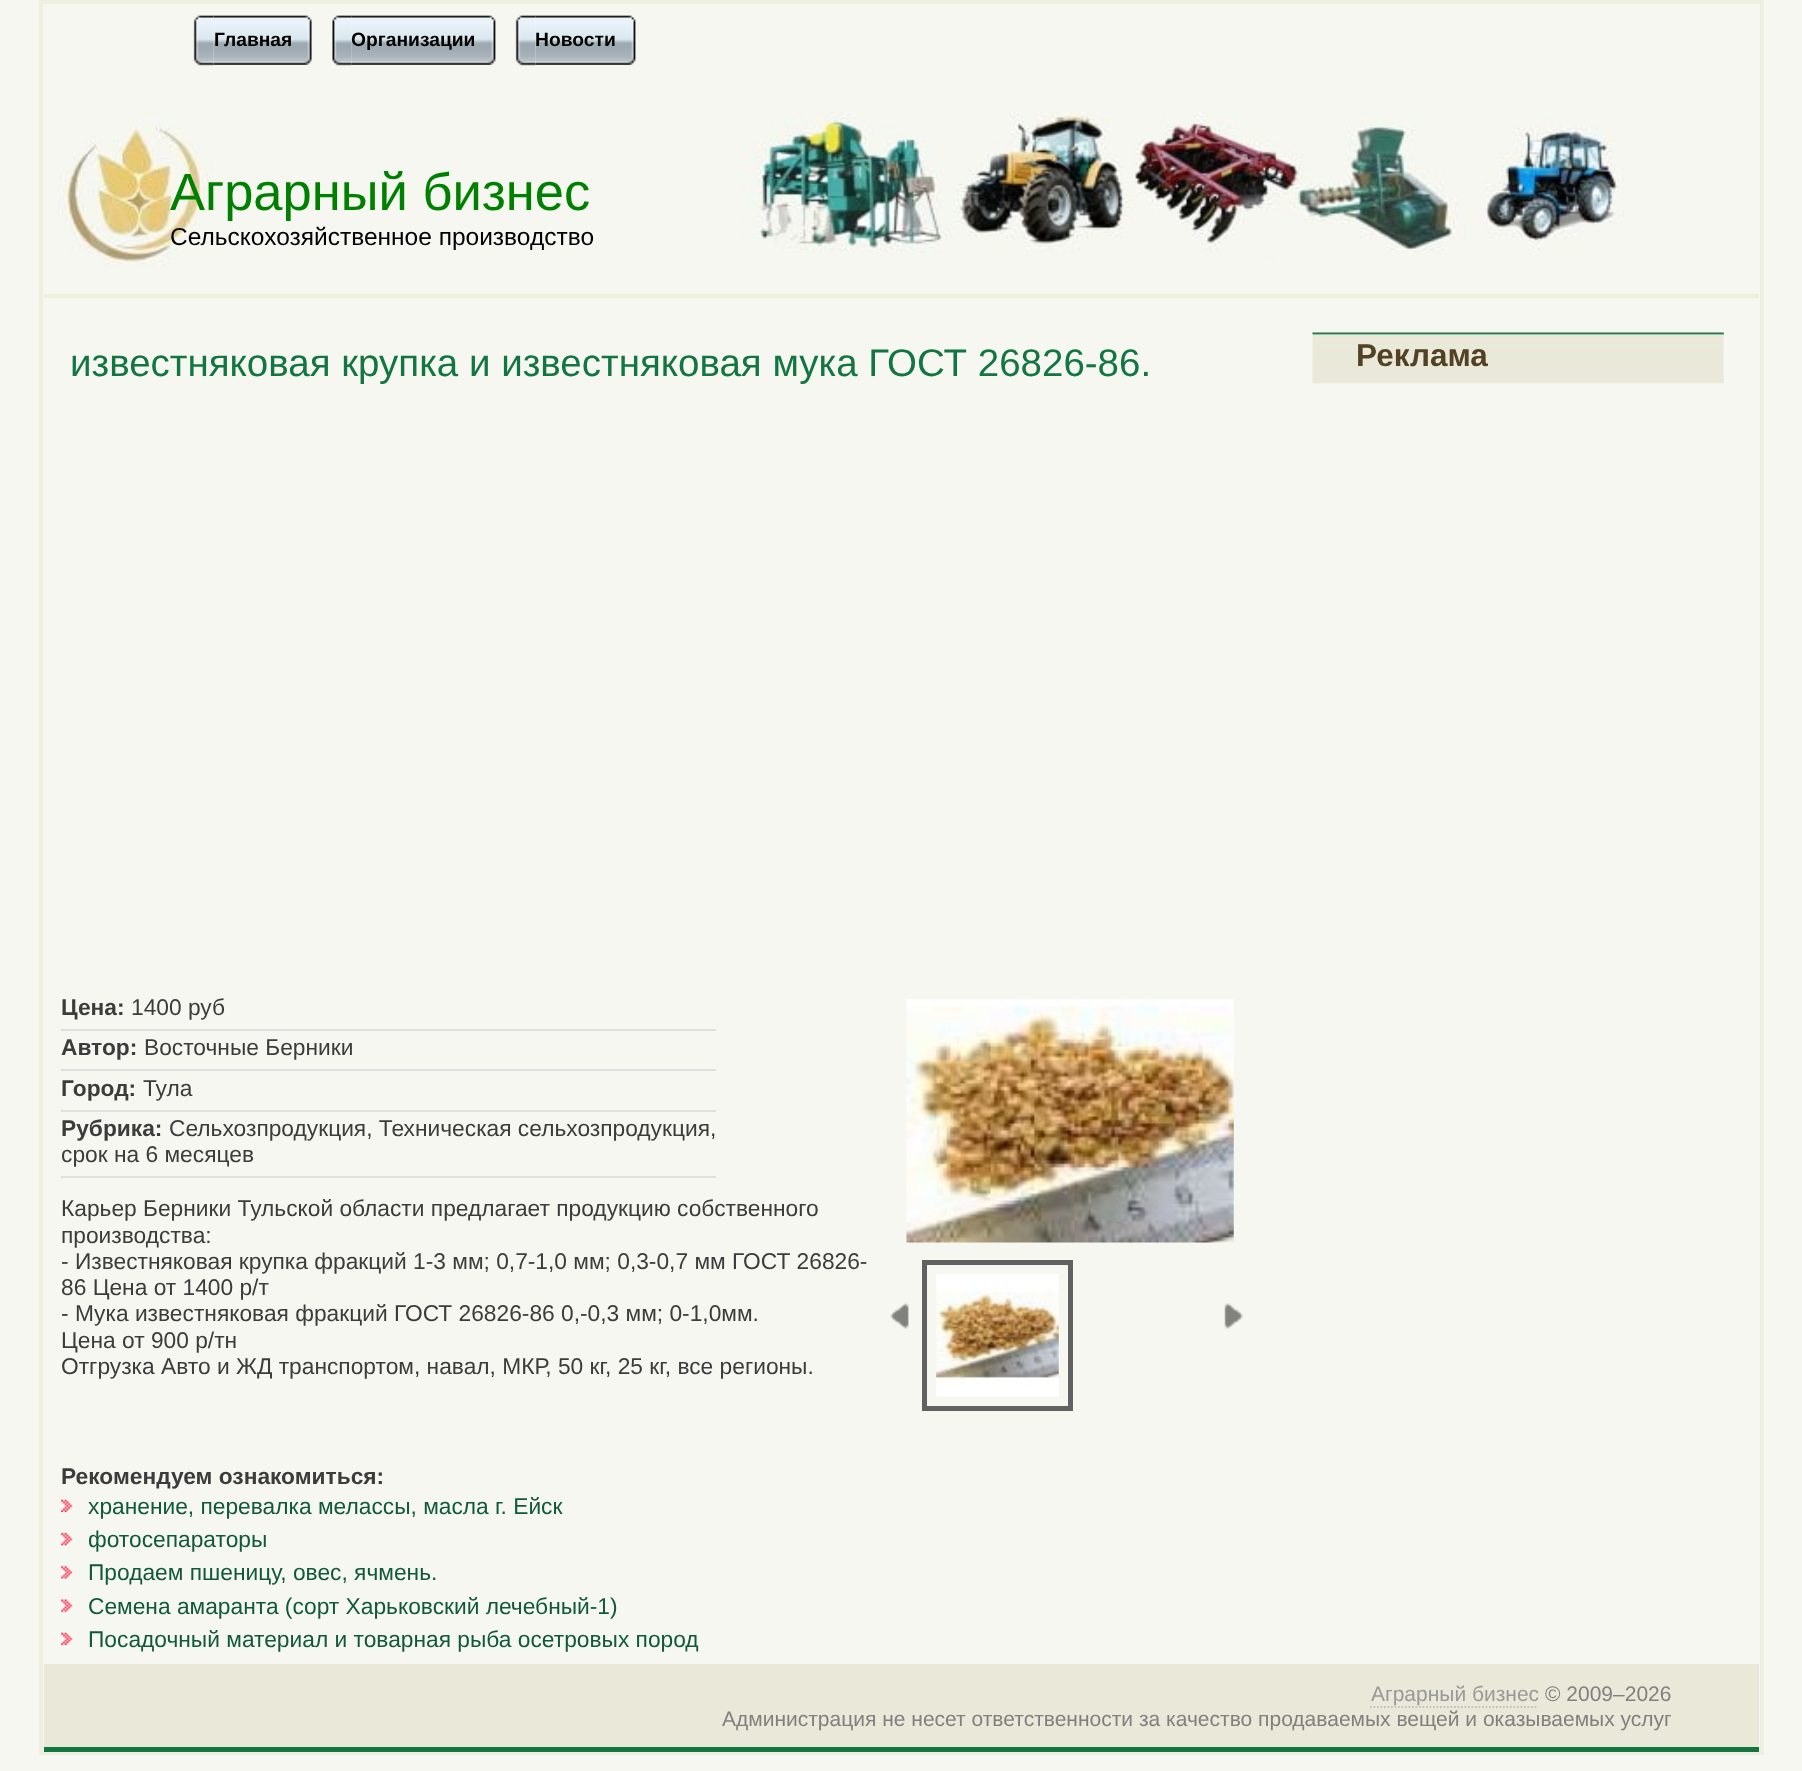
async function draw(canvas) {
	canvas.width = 1802;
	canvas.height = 1771;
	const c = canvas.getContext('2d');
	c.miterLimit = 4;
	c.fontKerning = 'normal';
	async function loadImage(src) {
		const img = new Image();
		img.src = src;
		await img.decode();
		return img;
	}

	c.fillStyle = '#f7f7f1';
	c.fillRect(0, 0, 1802, 1771);
	c.strokeStyle = '#efefe0';
	c.lineWidth = 4;
	c.strokeRect(41, 2, 1721, 1751);
	c.drawImage(await loadImage('img1.png'), 193, 15, 21, 51);
	c.drawImage(await loadImage('img2.png'), 213, 15, 99, 50);
	c.font = 'bold 19.25px Liberation Sans';
	c.fillStyle = '#000';
	c.fillText('Главная', 214, 46);
	c.drawImage(await loadImage('img3.png'), 332, 15, 20, 51);
	c.drawImage(await loadImage('img4.png'), 351, 15, 145, 50);
	c.fillText('Организации', 351, 46);
	c.drawImage(await loadImage('img5.png'), 515, 15, 21, 51);
	c.drawImage(await loadImage('img6.png'), 535, 15, 101, 50);
	c.fillText('Новости', 535, 46);
	c.drawImage(await loadImage('img7.png'), 58, 112, 1566, 154);
	c.fillStyle = '#efefe0';
	c.fillRect(44, 294, 1715, 4);
	c.font = '52.5px Liberation Sans';
	c.fillStyle = '#008000';
	c.fillText('Аграрный бизнес', 170, 210);
	c.font = '24.5px Liberation Sans';
	c.fillStyle = '#000';
	c.fillText('Сельскохозяйственное производство', 170, 245);
	c.font = '38.5px Liberation Sans';
	c.fillStyle = '#137642';
	c.fillText('известняковая крупка и известняковая мука ГОСТ 26826-86.', 70, 376);
	c.fillStyle = '#e0e0e0';
	c.fillRect(61, 1029, 655, 2);
	c.font = 'bold 22.75px Liberation Sans';
	c.fillStyle = '#3c3c3c';
	c.fillText('Цена:', 61, 1015);
	c.font = '22.75px Liberation Sans';
	c.fillText('1400 руб', 131, 1015);
	c.fillStyle = '#e0e0e0';
	c.fillRect(61, 1069, 655, 2);
	c.font = 'bold 22.75px Liberation Sans';
	c.fillStyle = '#3c3c3c';
	c.fillText('Автор:', 61, 1055);
	c.font = '22.75px Liberation Sans';
	c.fillText('Восточные Берники', 144, 1055);
	c.fillStyle = '#e0e0e0';
	c.fillRect(61, 1110, 655, 2);
	c.font = 'bold 22.75px Liberation Sans';
	c.fillStyle = '#3c3c3c';
	c.fillText('Город:', 61, 1096);
	c.font = '22.75px Liberation Sans';
	c.fillText('Тула', 143, 1096);
	c.fillStyle = '#e0e0e0';
	c.fillRect(61, 1176, 655, 2);
	c.font = 'bold 22.75px Liberation Sans';
	c.fillStyle = '#3c3c3c';
	c.fillText('Рубрика:', 61, 1136);
	c.font = '22.75px Liberation Sans';
	for (const [text, x, y] of [
		['Сельхозпродукция, Техническая сельхозпродукция,', 169, 1136],
		['срок на 6 месяцев', 61, 1162],
		['Карьер Берники Тульской области предлагает продукцию собственного', 61, 1216],
		['производства:', 61, 1243],
		['- Известняковая крупка фракций 1-3 мм; 0,7-1,0 мм; 0,3-0,7 мм ГОСТ 26826-', 61, 1269],
		['86 Цена от 1400 р/т', 61, 1295],
		['- Мука известняковая фракций ГОСТ 26826-86 0,-0,3 мм; 0-1,0мм.', 61, 1321],
		['Цена от 900 р/тн', 61, 1348],
		['Отгрузка Авто и ЖД транспортом, навал, МКР, 50 кг, 25 кг, все регионы.', 61, 1374],
	]) {
		c.fillText(text, x, y);
	}
	c.drawImage(await loadImage('img8.png'), 906, 999, 328, 244);
	c.drawImage(await loadImage('img9.png'), 890, 1303, 19, 26);
	c.strokeStyle = '#616161';
	c.lineWidth = 5;
	c.strokeRect(924.5, 1262.5, 146, 146);
	c.drawImage(await loadImage('img10.png'), 936, 1274, 123, 123);
	c.drawImage(await loadImage('img11.png'), 1224, 1303, 19, 26);
	c.font = 'bold 22.75px Liberation Sans';
	c.fillText('Рекомендуем ознакомиться:', 61, 1484);
	c.drawImage(await loadImage('img12.png'), 61, 1499, 12, 13);
	c.font = '22.75px Liberation Sans';
	c.fillStyle = '#11593c';
	c.fillText('хранение, перевалка мелассы, масла г. Ейск', 88, 1514);
	c.drawImage(await loadImage('img13.png'), 61, 1533, 12, 13);
	c.fillText('фотосепараторы', 88, 1547);
	c.drawImage(await loadImage('img14.png'), 61, 1566, 12, 13);
	c.fillText('Продаем пшеницу, овес, ячмень.', 88, 1580);
	c.drawImage(await loadImage('img15.png'), 61, 1599, 12, 13);
	c.fillText('Семена амаранта (сорт Харьковский лечебный-1)', 88, 1614);
	c.drawImage(await loadImage('img12.png'), 61, 1632, 12, 13);
	c.fillText('Посадочный материал и товарная рыба осетровых пород', 88, 1647);
	c.drawImage(await loadImage('img16.png'), 1312, 332, 412, 52);
	c.font = 'bold 31.5px Liberation Sans';
	c.fillStyle = '#534124';
	c.fillText('Реклама', 1356, 366);
	c.fillStyle = '#eae8d8';
	c.fillRect(44, 1664, 1715, 83);
	c.fillStyle = '#137642';
	c.fillRect(44, 1747, 1715, 5);
	c.font = '21px Liberation Sans';
	c.fillStyle = '#999';
	c.fillText('Аграрный бизнес', 1371, 1701);
	c.beginPath();
	c.moveTo(1370, 1707);
	c.lineTo(1538, 1707);
	c.strokeStyle = '#c3c2c2';
	c.lineWidth = 1.8;
	c.setLineDash([1.75, 1.75]);
	c.stroke();
	c.fillStyle = '#808080';
	c.fillText('© 2009–2026', 1545, 1701);
	c.fillText('Администрация не несет ответственности за качество продаваемых вещей и оказываемых услуг', 722, 1726);
}

draw(document.querySelector('canvas'));
